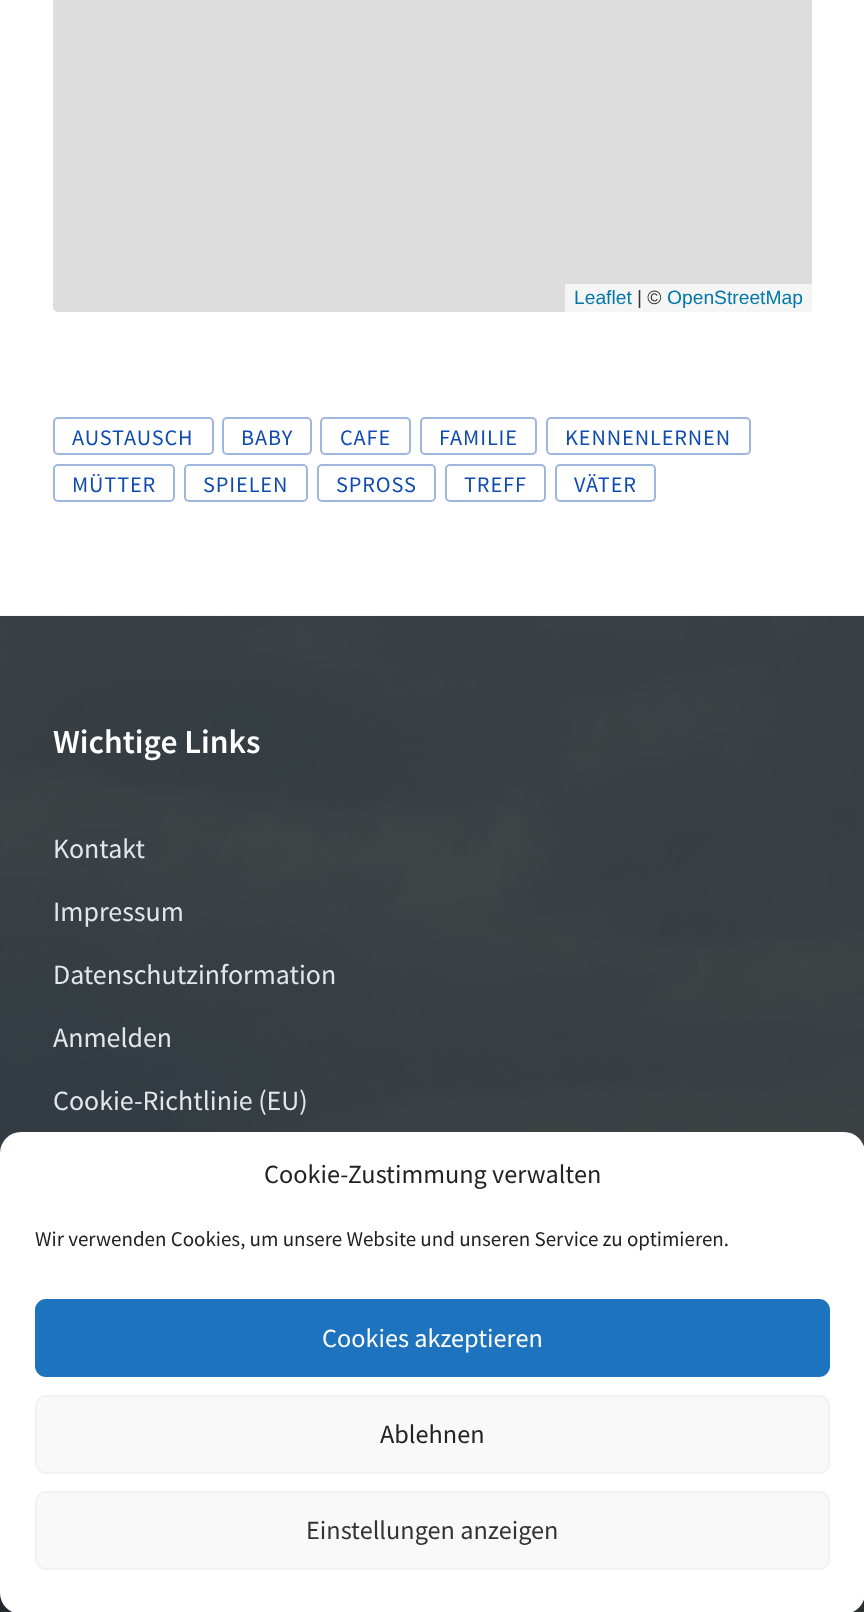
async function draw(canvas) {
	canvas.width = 864;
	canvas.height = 1612;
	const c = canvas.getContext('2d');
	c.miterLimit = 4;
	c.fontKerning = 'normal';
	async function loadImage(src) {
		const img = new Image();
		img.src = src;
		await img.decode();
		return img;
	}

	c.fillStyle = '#fff';
	c.fillRect(0, 0, 864, 1612);
	c.fillStyle = '#ddd';
	c.beginPath();
	c.roundRect(53, -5, 759, 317, 5);
	c.fill();
	c.fillStyle = '#ffffffb3';
	c.beginPath();
	c.roundRect(565, 284, 247, 28, [0, 0, 5, 0]);
	c.fill();
	c.font = '19.25px Liberation Sans';
	c.fillStyle = '#0078a8';
	c.fillText('Leaflet', 574, 304);
	c.fillStyle = '#333';
	c.fillText('| ©', 637, 304);
	c.fillStyle = '#0078a8';
	c.fillText('OpenStreetMap', 667, 304);
	c.beginPath();
	c.roundRect(54, 418, 159, 36, 4);
	c.strokeStyle = '#9fb7df';
	c.lineWidth = 2;
	c.stroke();
	c.letterSpacing = '0.9px';
	c.font = '22.25px Source Sans Pro';
	c.fillStyle = '#104baf';
	c.fillText('AUSTAUSCH', 72, 445);
	c.beginPath();
	c.roundRect(223, 418, 88, 36, 4);
	c.stroke();
	c.fillText('BABY', 241, 445);
	c.beginPath();
	c.roundRect(321, 418, 89, 36, 4);
	c.stroke();
	c.fillText('CAFE', 340, 445);
	c.beginPath();
	c.roundRect(421, 418, 115, 36, 4);
	c.stroke();
	c.fillText('FAMILIE', 439, 445);
	c.beginPath();
	c.roundRect(547, 418, 203, 36, 4);
	c.stroke();
	c.fillText('KENNENLERNEN', 565, 445);
	c.beginPath();
	c.roundRect(54, 465, 120, 36, 4);
	c.stroke();
	c.fillText('MÜTTER', 72, 492);
	c.beginPath();
	c.roundRect(185, 465, 122, 36, 4);
	c.stroke();
	c.fillText('SPIELEN', 203, 492);
	c.beginPath();
	c.roundRect(318, 465, 117, 36, 4);
	c.stroke();
	c.fillText('SPROSS', 336, 492);
	c.beginPath();
	c.roundRect(446, 465, 99, 36, 4);
	c.stroke();
	c.fillText('TREFF', 464, 492);
	c.beginPath();
	c.roundRect(556, 465, 99, 36, 4);
	c.stroke();
	c.fillText('VÄTER', 574, 492);
	c.drawImage(await loadImage('img1.png'), 0, 615, 864, 997);
	c.letterSpacing = '0px';
	c.font = '600 33.5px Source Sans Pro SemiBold';
	c.fillStyle = '#fff';
	c.fillText('Wichtige Links', 53, 753);
	c.font = '27.9px Source Sans Pro';
	c.fillStyle = '#e1e7ec';
	for (const [text, x, y] of [
		['Kontakt', 53, 858],
		['Impressum', 53, 921],
		['Datenschutzinformation', 53, 984],
		['Anmelden', 53, 1047],
		['Cookie-Richtlinie (EU)', 53, 1110],
	]) {
		c.fillText(text, x, y);
	}
	c.fillStyle = '#fff';
	c.beginPath();
	c.roundRect(0, 1132, 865, 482, 21);
	c.fill();
	c.font = '26.25px Source Sans Pro';
	c.fillStyle = '#222';
	c.fillText('Cookie-Zustimmung verwalten', 264, 1183);
	c.font = '21px Source Sans Pro';
	c.fillText('Wir verwenden Cookies, um unsere Website und unseren Service zu optimieren.', 35, 1246);
	c.fillStyle = '#1e73be';
	c.beginPath();
	c.roundRect(36, 1300, 793, 76, 10);
	c.fill();
	c.strokeStyle = '#1e73be';
	c.stroke();
	c.font = '26.25px Source Sans Pro';
	c.fillStyle = '#fff';
	c.fillText('Cookies akzeptieren', 322, 1347);
	c.fillStyle = '#f9f9f9';
	c.beginPath();
	c.roundRect(36, 1396, 793, 77, 10);
	c.fill();
	c.strokeStyle = '#f2f2f2';
	c.stroke();
	c.fillStyle = '#222';
	c.fillText('Ablehnen', 380, 1443);
	c.fillStyle = '#f9f9f9';
	c.beginPath();
	c.roundRect(36, 1492, 793, 77, 10);
	c.fill();
	c.stroke();
	c.fillStyle = '#333';
	c.fillText('Einstellungen anzeigen', 306, 1539);
}

draw(document.querySelector('canvas'));
